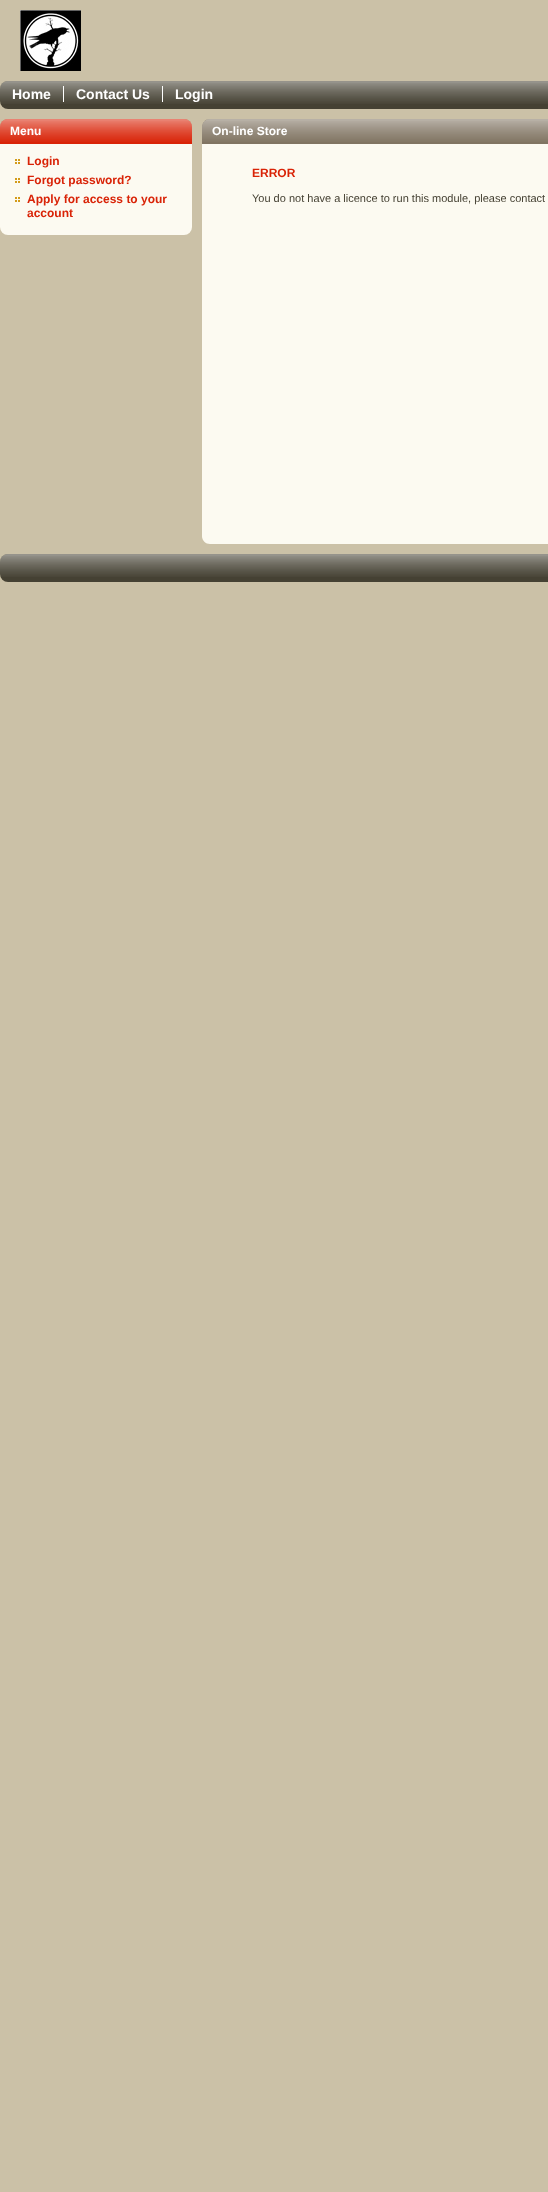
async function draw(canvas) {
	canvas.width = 548;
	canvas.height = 2192;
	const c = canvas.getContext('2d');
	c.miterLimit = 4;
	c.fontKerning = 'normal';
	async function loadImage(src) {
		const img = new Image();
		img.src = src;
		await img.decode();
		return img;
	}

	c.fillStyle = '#cbc1a7';
	c.fillRect(0, 0, 548, 2192);
	c.drawImage(await loadImage('img1.png'), 20, 10, 61, 61);
	c.fillStyle = '#454133';
	c.beginPath();
	c.roundRect(0, 81, 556, 28, 8);
	c.fill();
	c.drawImage(await loadImage('img2.png'), 0, 81, 548, 23);
	c.font = 'bold 14px Liberation Sans';
	c.fillStyle = '#fff';
	c.fillText('Home', 12, 99);
	c.fillRect(63, 86, 1, 16);
	c.fillText('Contact Us', 76, 99);
	c.fillRect(162, 86, 1, 16);
	c.fillText('Login', 175, 99);
	c.fillStyle = '#d92307';
	c.beginPath();
	c.roundRect(0, 119, 192, 25, [8, 8, 0, 0]);
	c.fill();
	c.drawImage(await loadImage('img3.png'), 0, 119, 192, 23);
	c.font = 'bold 12px Liberation Sans';
	c.fillStyle = '#fff';
	c.fillText('Menu', 10, 135);
	c.fillStyle = '#fcfaf1';
	c.beginPath();
	c.roundRect(0, 144, 192, 91, [0, 0, 8, 8]);
	c.fill();
	c.drawImage(await loadImage('img4.png'), 15, 159, 5, 5);
	c.fillStyle = '#d92307';
	c.fillText('Login', 27, 165);
	c.drawImage(await loadImage('img4.png'), 15, 178, 5, 5);
	c.fillText('Forgot password?', 27, 184);
	c.drawImage(await loadImage('img4.png'), 15, 197, 5, 5);
	c.fillText('Apply for access to your', 27, 203);
	c.fillText('account', 27, 217);
	c.fillStyle = '#807462';
	c.beginPath();
	c.moveTo(210, 119);
	c.lineTo(548, 119);
	c.bezierCurveTo(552.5, 119, 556, 122.5, 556, 127);
	c.lineTo(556, 144);
	c.lineTo(202, 144);
	c.lineTo(202, 127);
	c.bezierCurveTo(202, 122.5, 205.5, 119, 210, 119);
	c.closePath();
	c.fill();
	c.drawImage(await loadImage('img5.png'), 202, 119, 346, 23);
	c.fillStyle = '#fff';
	c.fillText('On-line Store', 212, 135);
	c.fillStyle = '#fcfaf1';
	c.beginPath();
	c.moveTo(202, 144);
	c.lineTo(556, 144);
	c.lineTo(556, 536);
	c.bezierCurveTo(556, 540.5, 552.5, 544, 548, 544);
	c.lineTo(210, 544);
	c.bezierCurveTo(205.5, 544, 202, 540.5, 202, 536);
	c.closePath();
	c.fill();
	c.fillStyle = '#d92307';
	c.fillText('ERROR', 252, 177);
	c.font = '11px Liberation Sans';
	c.fillStyle = '#454133';
	c.fillText('You do not have a licence to run this module, please contact', 252, 202);
	c.beginPath();
	c.roundRect(0, 554, 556, 28, 8);
	c.fill();
	c.drawImage(await loadImage('img2.png'), 0, 554, 548, 23);
}

draw(document.querySelector('canvas'));
